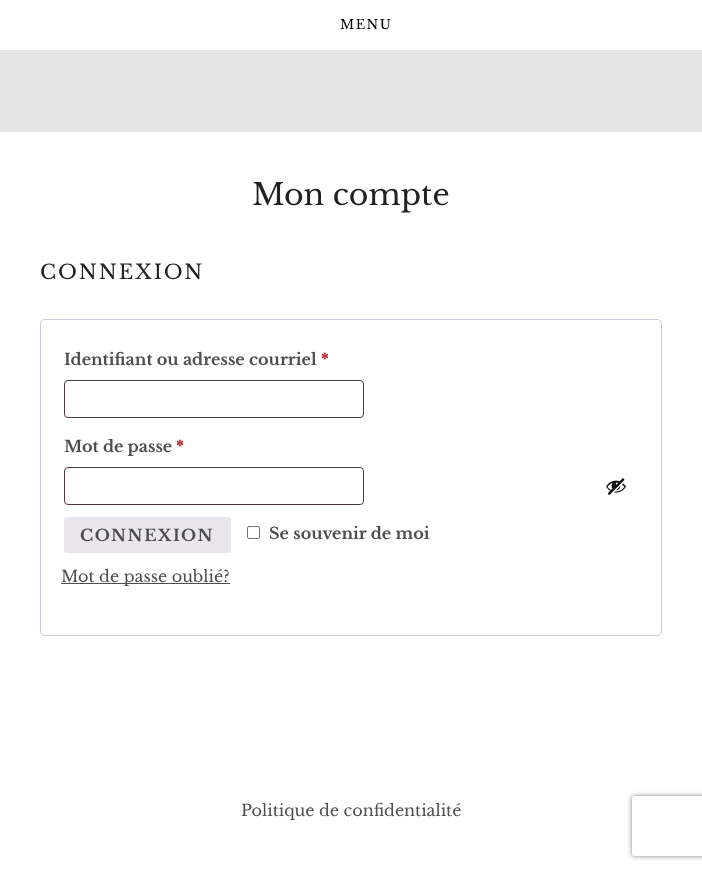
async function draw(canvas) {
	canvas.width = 702;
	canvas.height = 870;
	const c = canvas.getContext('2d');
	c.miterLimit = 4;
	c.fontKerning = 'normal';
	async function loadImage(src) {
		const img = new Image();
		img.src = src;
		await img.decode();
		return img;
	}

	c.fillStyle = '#fff';
	c.fillRect(0, 0, 702, 870);
	c.letterSpacing = '1.5px';
	c.font = '13px Libre Baskerville';
	c.fillStyle = '#000';
	c.fillText('MENU', 340, 29);
	c.fillStyle = '#e6e6e6';
	c.fillRect(0, 50, 702, 82);
	c.letterSpacing = '0px';
	c.font = '30px Libre Baskerville';
	c.fillStyle = '#222';
	c.fillText('Mon compte', 252, 205);
	c.letterSpacing = '2px';
	c.font = '20px Libre Baskerville';
	c.fillText('CONNEXION', 40, 279);
	c.beginPath();
	c.roundRect(40.5, 319.5, 621, 316, 4.5);
	c.strokeStyle = '#cfc8d8';
	c.stroke();
	c.letterSpacing = '0px';
	c.font = 'bold 16px Libre Baskerville';
	c.fillStyle = '#4d4d4d';
	c.fillText('Identifiant ou adresse courriel', 64, 365);
	c.fillStyle = '#a00';
	c.fillText('*', 321, 365);
	c.beginPath();
	c.roundRect(64.5, 380.5, 299, 37, 3.5);
	c.strokeStyle = '#4d3939';
	c.stroke();
	c.fillStyle = '#4d4d4d';
	c.fillText('Mot de passe', 64, 452);
	c.fillStyle = '#a00';
	c.fillText('*', 176, 452);
	c.beginPath();
	c.roundRect(64.5, 467.5, 299, 37, 3.5);
	c.stroke();
	c.drawImage(await loadImage('img1.png'), 606, 478, 20, 17);
	c.fillStyle = '#e9e6ed';
	c.beginPath();
	c.roundRect(64, 517, 167, 36, 3);
	c.fill();
	c.letterSpacing = '1.5px';
	c.fillStyle = '#4d4d4d';
	c.fillText('CONNEXION', 80, 541);
	c.beginPath();
	c.roundRect(247.5, 526.5, 12, 12, 1.5);
	c.strokeStyle = '#767676';
	c.stroke();
	c.letterSpacing = '0px';
	c.fillText('Se souvenir de moi', 269, 539);
	c.fillRect(61, 583, 169, 1);
	c.font = '16px Libre Baskerville';
	c.fillText('Mot de passe oublié?', 61, 582);
	c.fillText('Politique de confidentialité', 241, 816);
	c.save();
	c.beginPath();
	c.moveTo(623, 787);
	c.lineTo(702, 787);
	c.lineTo(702, 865);
	c.lineTo(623, 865);
	c.closePath();
	c.moveTo(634, 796);
	c.lineTo(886, 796);
	c.bezierCurveTo(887, 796, 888, 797, 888, 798);
	c.lineTo(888, 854);
	c.bezierCurveTo(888, 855, 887, 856, 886, 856);
	c.lineTo(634, 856);
	c.bezierCurveTo(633, 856, 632, 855, 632, 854);
	c.lineTo(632, 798);
	c.bezierCurveTo(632, 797, 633, 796, 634, 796);
	c.closePath();
	c.clip('evenodd');
	c.fillStyle = '#808080';
	c.filter = 'blur(2.5px)';
	c.beginPath();
	c.roundRect(632, 796, 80, 60, 2);
	c.fill();
	c.filter = 'none';
	c.restore();
}

draw(document.querySelector('canvas'));
